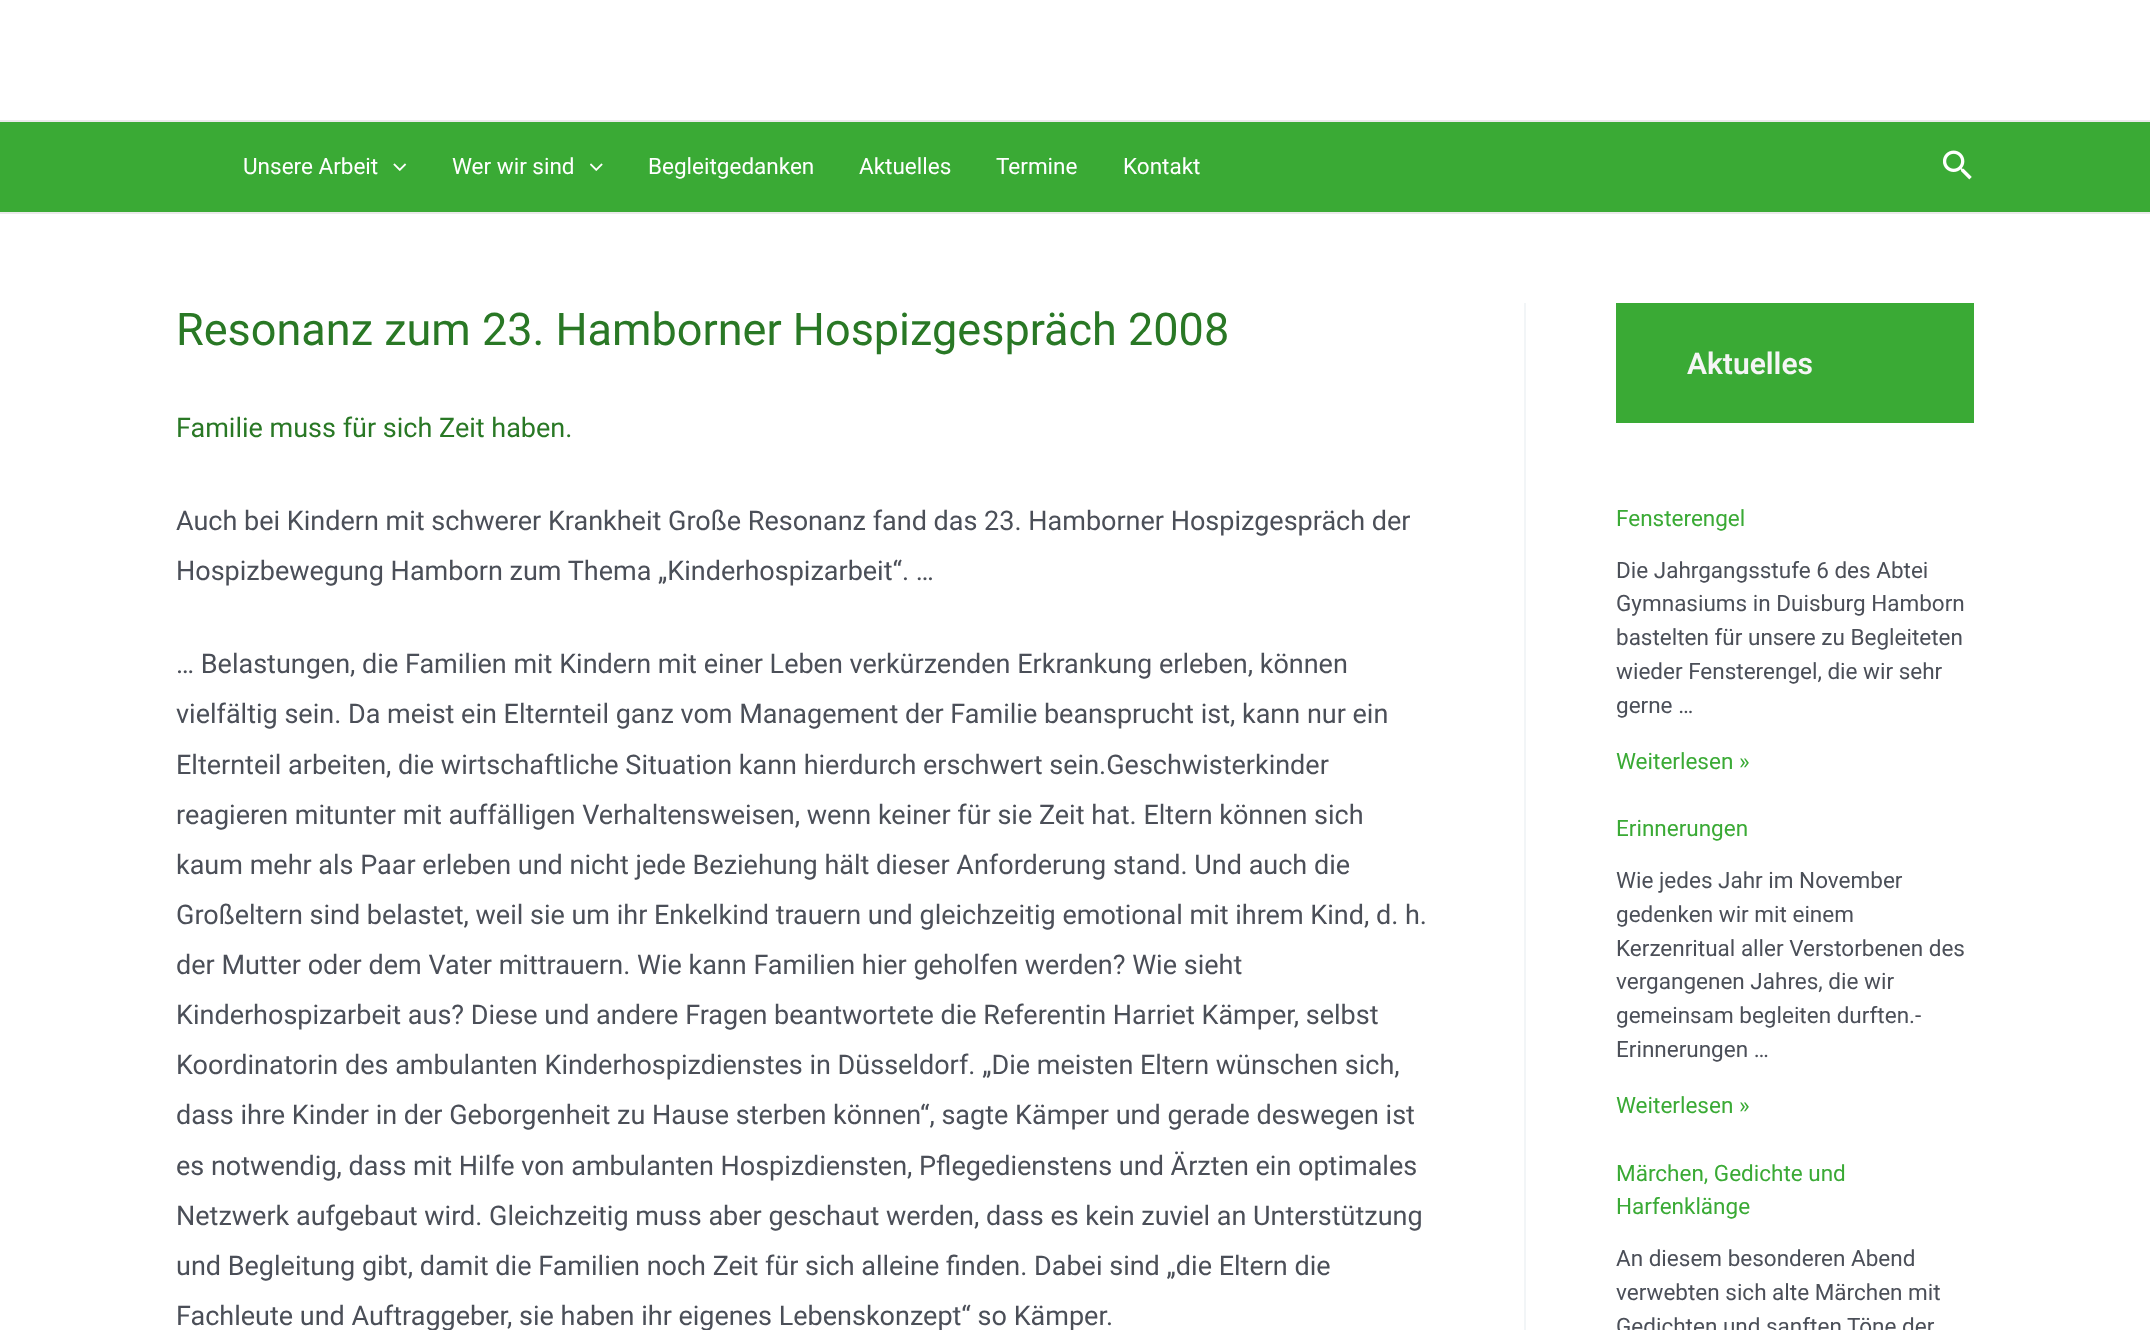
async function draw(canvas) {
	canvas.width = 2150;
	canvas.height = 1330;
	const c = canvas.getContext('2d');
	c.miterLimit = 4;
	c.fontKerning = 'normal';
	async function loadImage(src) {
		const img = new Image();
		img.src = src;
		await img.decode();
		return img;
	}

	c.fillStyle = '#fff';
	c.fillRect(0, 0, 2150, 1330);
	for (const [x, y, w, h, color] of [
		[0, 120, 2150, 2, '#eaeaea'],
		[0, 122, 2150, 90, '#3aaa35'],
		[0, 212, 2150, 2, '#eaeaea'],
	]) {
		c.fillStyle = color;
		c.fillRect(x, y, w, h);
	}
	c.font = '22.5px Roboto';
	c.fillStyle = '#fff';
	c.fillText('Unsere Arbeit', 243, 174);
	c.drawImage(await loadImage('img1.png'), 393, 163, 14, 8);
	c.fillText('Wer wir sind', 452, 174);
	c.drawImage(await loadImage('img2.png'), 590, 163, 13, 8);
	for (const [text, x, y] of [
		['Begleitgedanken', 648, 174],
		['Aktuelles', 859, 174],
		['Termine', 996, 174],
		['Kontakt', 1123, 174],
	]) {
		c.fillText(text, x, y);
	}
	c.drawImage(await loadImage('img3.png'), 1943, 150, 29, 30);
	c.fillStyle = '#f2f5f7';
	c.fillRect(1524, 303, 2, 1027);
	c.font = '45px Roboto';
	c.fillStyle = '#297825';
	c.fillText('Resonanz zum 23. Hamborner Hospizgespräch 2008', 176, 345);
	c.font = '27px Roboto';
	c.fillText('Familie muss für sich Zeit haben.', 176, 437);
	c.fillStyle = '#4b4f58';
	for (const [text, x, y] of [
		['Auch bei Kindern mit schwerer Krankheit Große Resonanz fand das 23. Hamborner Hospizgespräch der', 176, 530],
		['Hospizbewegung Hamborn zum Thema „Kinderhospizarbeit“. …', 176, 580],
		['… Belastungen, die Familien mit Kindern mit einer Leben verkürzenden Erkrankung erleben, können', 176, 673],
		['vielfältig sein. Da meist ein Elternteil ganz vom Management der Familie beansprucht ist, kann nur ein', 176, 723],
		['Elternteil arbeiten, die wirtschaftliche Situation kann hierdurch erschwert sein.Geschwisterkinder', 176, 774],
		['reagieren mitunter mit auffälligen Verhaltensweisen, wenn keiner für sie Zeit hat. Eltern können sich', 176, 824],
		['kaum mehr als Paar erleben und nicht jede Beziehung hält dieser Anforderung stand. Und auch die', 176, 874],
		['Großeltern sind belastet, weil sie um ihr Enkelkind trauern und gleichzeitig emotional mit ihrem Kind, d. h.', 176, 924],
		['der Mutter oder dem Vater mittrauern. Wie kann Familien hier geholfen werden? Wie sieht', 176, 974],
		['Kinderhospizarbeit aus? Diese und andere Fragen beantwortete die Referentin Harriet Kämper, selbst', 176, 1024],
		['Koordinatorin des ambulanten Kinderhospizdienstes in Düsseldorf. „Die meisten Eltern wünschen sich,', 176, 1074],
		['dass ihre Kinder in der Geborgenheit zu Hause sterben können“, sagte Kämper und gerade deswegen ist', 176, 1124],
		['es notwendig, dass mit Hilfe von ambulanten Hospizdiensten, Pflegedienstens und Ärzten ein optimales', 176, 1175],
		['Netzwerk aufgebaut wird. Gleichzeitig muss aber geschaut werden, dass es kein zuviel an Unterstützung', 176, 1225],
		['und Begleitung gibt, damit die Familien noch Zeit für sich alleine finden. Dabei sind „die Eltern die', 176, 1275],
		['Fachleute und Auftraggeber, sie haben ihr eigenes Lebenskonzept“ so Kämper.', 176, 1325],
	]) {
		c.fillText(text, x, y);
	}
	c.fillStyle = '#3aaa35';
	c.fillRect(1616, 303, 358, 120);
	c.font = '600 30px Roboto';
	c.fillStyle = '#f5f5f5';
	c.fillText('Aktuelles', 1687, 374);
	c.font = '22.5px Roboto';
	c.fillStyle = '#3aaa35';
	c.fillText('Fensterengel', 1616, 526);
	c.fillStyle = '#4b4f58';
	for (const [text, x, y] of [
		['Die Jahrgangsstufe 6 des Abtei', 1616, 578],
		['Gymnasiums in Duisburg Hamborn', 1616, 611],
		['bastelten für unsere zu Begleiteten', 1616, 645],
		['wieder Fensterengel, die wir sehr', 1616, 679],
		['gerne …', 1616, 713],
	]) {
		c.fillText(text, x, y);
	}
	c.fillStyle = '#3aaa35';
	c.fillText('Weiterlesen »', 1616, 769);
	c.fillText('Erinnerungen', 1616, 836);
	c.fillStyle = '#4b4f58';
	for (const [text, x, y] of [
		['Wie jedes Jahr im November', 1616, 888],
		['gedenken wir mit einem', 1616, 922],
		['Kerzenritual aller Verstorbenen des', 1616, 956],
		['vergangenen Jahres, die wir', 1616, 989],
		['gemeinsam begleiten durften.-', 1616, 1023],
		['Erinnerungen …', 1616, 1057],
	]) {
		c.fillText(text, x, y);
	}
	c.fillStyle = '#3aaa35';
	for (const [text, x, y] of [
		['Weiterlesen »', 1616, 1113],
		['Märchen, Gedichte und', 1616, 1181],
		['Harfenklänge', 1616, 1214],
	]) {
		c.fillText(text, x, y);
	}
	c.fillStyle = '#4b4f58';
	for (const [text, x, y] of [
		['An diesem besonderen Abend', 1616, 1266],
		['verwebten sich alte Märchen mit', 1616, 1300],
		['Gedichten und sanften Töne der', 1616, 1334],
	]) {
		c.fillText(text, x, y);
	}
}

draw(document.querySelector('canvas'));
